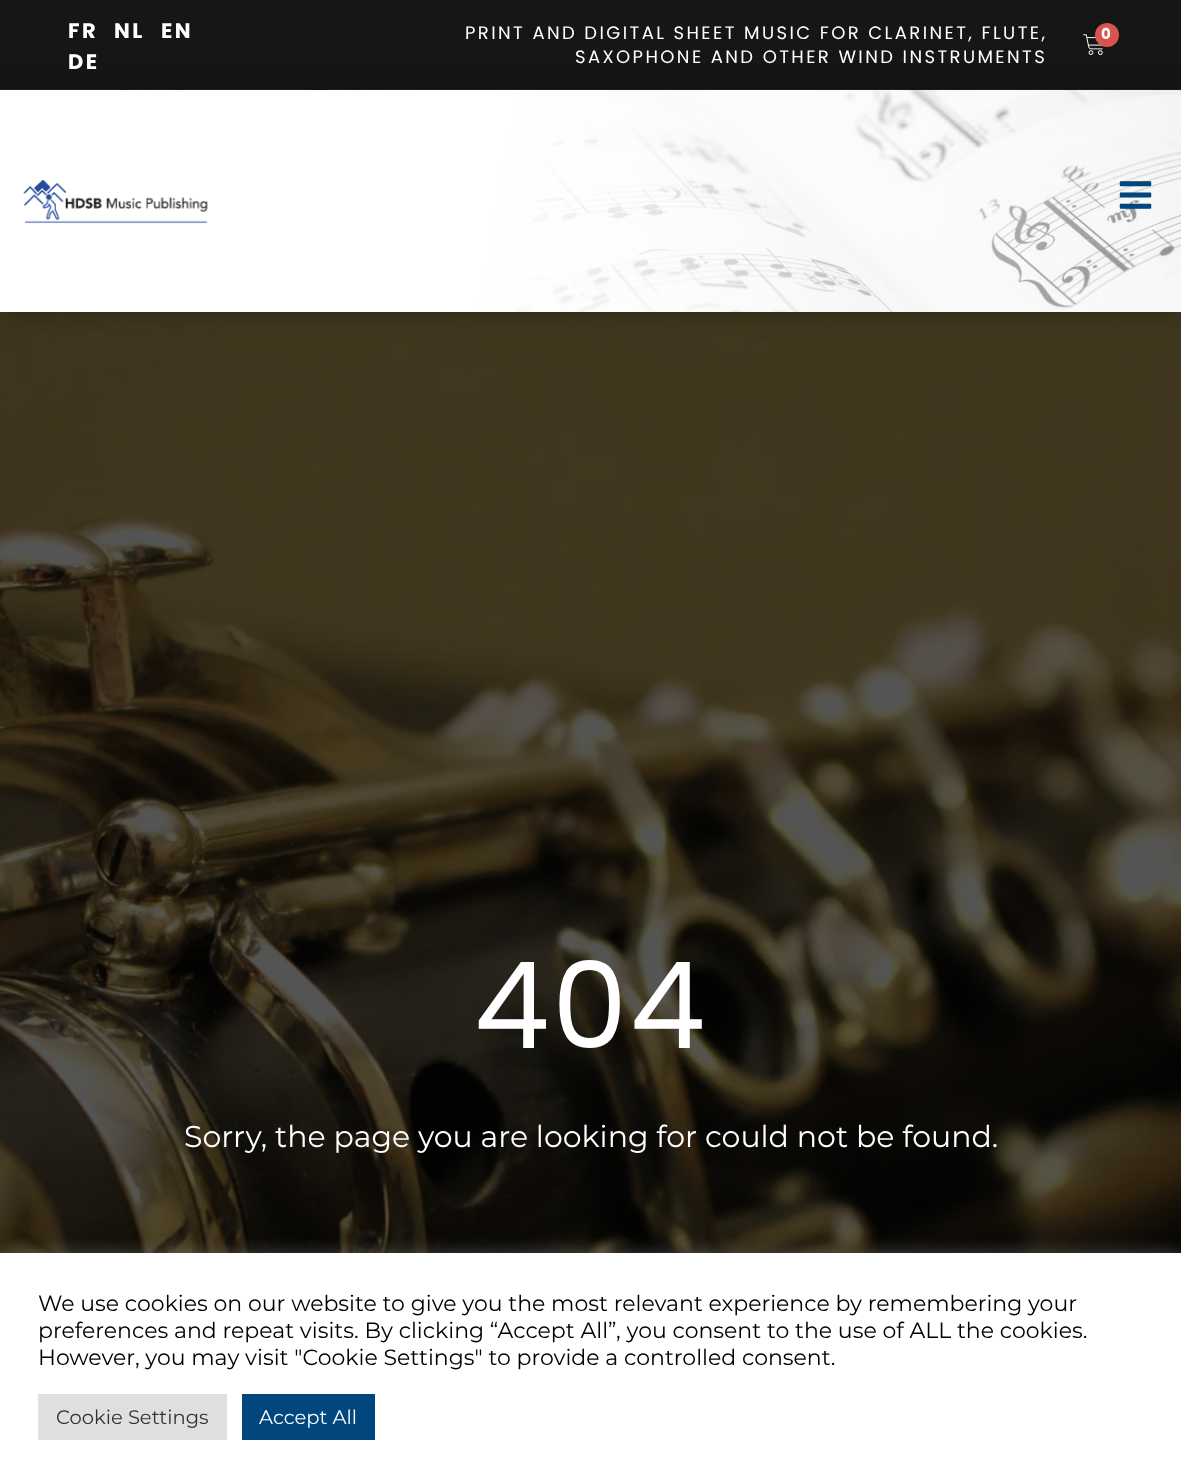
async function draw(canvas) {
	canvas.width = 1181;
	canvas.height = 1484;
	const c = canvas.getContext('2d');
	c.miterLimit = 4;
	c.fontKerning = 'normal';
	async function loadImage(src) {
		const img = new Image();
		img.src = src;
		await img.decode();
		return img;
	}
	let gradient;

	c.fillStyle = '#fff';
	c.fillRect(0, 0, 1181, 1484);
	c.fillStyle = '#141618';
	c.fillRect(0, 0, 1181, 90);
	c.letterSpacing = '2.4px';
	c.font = 'bold 21px Poppins';
	c.fillStyle = '#fff';
	for (const [text, x, y] of [
		['FR', 68, 38],
		['NL', 114, 38],
		['EN', 161, 38],
		['DE', 68, 69],
	]) {
		c.fillText(text, x, y);
	}
	c.font = '18px Poppins';
	c.fillText('PRINT AND DIGITAL SHEET MUSIC FOR CLARINET, FLUTE,', 465, 39);
	c.fillText('SAXOPHONE AND OTHER WIND INSTRUMENTS', 575, 63);
	c.drawImage(await loadImage('img1.png'), 1083, 34, 20, 21);
	c.fillStyle = '#d9534f';
	c.beginPath();
	c.arc(1107, 35, 12, 0, 2 * Math.PI);
	c.fill();
	c.font = 'bold 15px Poppins';
	c.fillStyle = '#fff';
	c.fillText('0', 1101, 39);
	c.drawImage(await loadImage('img5.png'), 0, 312, 1181, 941);
	c.fillStyle = '#0000004f';
	c.filter = 'blur(13px)';
	c.beginPath();
	c.rect(0, 90, 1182, 222);
	c.fill();
	c.filter = 'none';
	c.drawImage(await loadImage('img2.png'), 0, 89, 1181, 223);
	gradient = c.createLinearGradient(-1.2, 97, 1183, 305);
	gradient.addColorStop(0.42, '#fff');
	gradient.addColorStop(1, '#ffffff8c');
	c.fillStyle = gradient;
	c.fillRect(0, 90, 1181, 222);
	c.drawImage(await loadImage('img3.png'), 23, 179, 185, 45);
	c.drawImage(await loadImage('img4.png'), 1119, 181, 33, 28);
	c.font = '120px Poppins';
	c.fillStyle = '#fff';
	c.fillText('404', 474, 1048);
	c.letterSpacing = '0px';
	c.font = '30px Montserrat';
	c.fillText('Sorry, the page you are looking for could not be found.', 184, 1147);
	c.fillStyle = '#acabab4d';
	c.filter = 'blur(7.5px)';
	c.beginPath();
	c.rect(0, 1251, 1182, 233);
	c.fill();
	c.filter = 'none';
	c.fillStyle = '#fff';
	c.fillRect(0, 1253, 1181, 231);
	c.font = '22px Montserrat';
	c.fillStyle = '#000';
	for (const [text, x, y] of [
		['We use cookies on our website to give you the most relevant experience by remembering your', 38, 1311],
		['preferences and repeat visits. By clicking “Accept All”, you consent to the use of ALL the cookies.', 38, 1338],
		['However, you may visit "Cookie Settings" to provide a controlled consent.', 38, 1365],
	]) {
		c.fillText(text, x, y);
	}
	c.fillStyle = '#dedfe0';
	c.fillRect(38, 1394, 189, 46);
	c.font = '19.5px Montserrat';
	c.fillStyle = '#333';
	c.fillText('Cookie Settings', 56, 1424);
	c.fillStyle = '#01467d';
	c.fillRect(242, 1394, 133, 46);
	c.fillStyle = '#fff';
	c.fillText('Accept All', 259, 1424);
}

draw(document.querySelector('canvas'));
